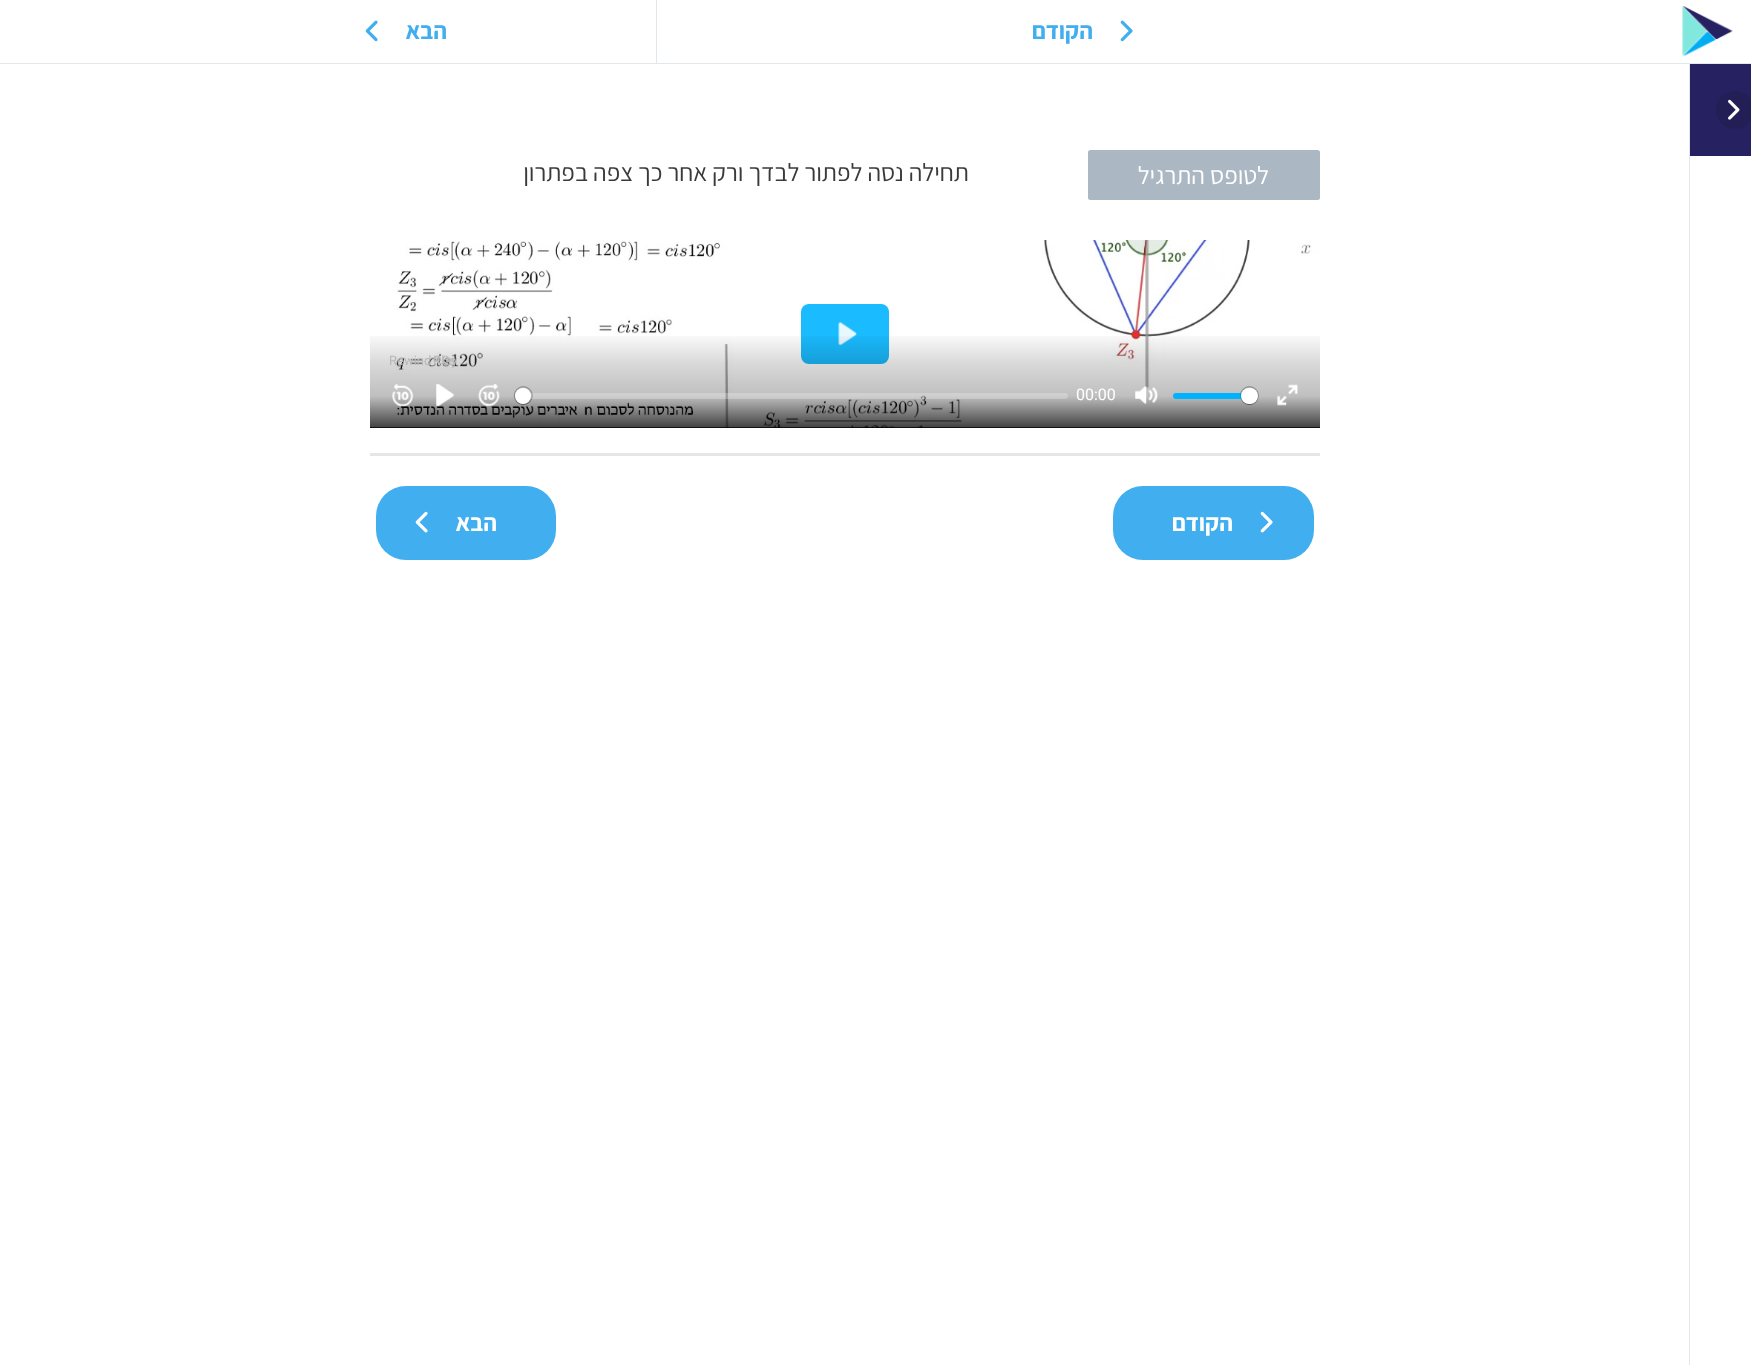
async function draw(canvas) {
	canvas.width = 1751;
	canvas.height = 1365;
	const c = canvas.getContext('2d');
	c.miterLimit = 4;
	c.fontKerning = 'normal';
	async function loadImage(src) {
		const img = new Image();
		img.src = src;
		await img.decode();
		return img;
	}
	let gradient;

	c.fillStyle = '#fff';
	c.fillRect(0, 0, 1751, 1365);
	c.fillStyle = '#e2e7ed';
	c.fillRect(1689, 64, 1, 1301);
	c.fillStyle = '#262261';
	c.fillRect(1690, 64, 61, 92);
	c.fillStyle = '#221f57';
	c.beginPath();
	c.arc(1735, 110, 19, 0, 2 * Math.PI);
	c.fill();
	c.drawImage(await loadImage('img1.png'), 1728, 99, 12, 21);
	c.fillStyle = '#e2e7ed';
	c.fillRect(0, 63, 1751, 1);
	c.drawImage(await loadImage('img2.png'), 1682, 6, 51, 51);
	c.fillRect(656, 0, 1, 64);
	c.drawImage(await loadImage('img3.png'), 1120, 20, 13, 22);
	c.direction = 'rtl';
	c.font = 'bold 24px Assistant';
	c.fillStyle = '#41aef0';
	c.fillText('הקודם', 1093, 39);
	c.fillText('הבא', 447, 39);
	c.drawImage(await loadImage('img4.png'), 365, 20, 13, 22);
	c.fillStyle = '#abb8c3';
	c.beginPath();
	c.roundRect(1088, 150, 232, 50, 2.5);
	c.fill();
	c.font = '25px Assistant';
	c.fillStyle = '#fff';
	c.fillText('לטופס התרגיל', 1269, 184);
	c.fillStyle = '#3a3a3a';
	c.fillText('תחילה נסה לפתור לבדך ורק אחר כך צפה בפתרון', 969, 181);
	c.fillStyle = '#000';
	c.fillRect(370, 427, 950, 1);
	c.drawImage(await loadImage('img5.png'), 370, 240, 950, 188);
	c.fillStyle = '#1abbff';
	c.beginPath();
	c.roundRect(801, 304, 88, 60, 8);
	c.fill();
	c.drawImage(await loadImage('img6.png'), 838, 322, 19, 24);
	gradient = c.createLinearGradient(845, 331, 845, 428);
	gradient.addColorStop(0, '#00000000');
	gradient.addColorStop(0.33, '#00000026');
	gradient.addColorStop(0.67, '#00000040');
	gradient.addColorStop(1, '#000000bf');
	c.fillStyle = gradient;
	c.fillRect(370, 336, 950, 92);
	c.direction = 'ltr';
	c.font = '13px Roboto';
	c.fillStyle = '#b7b7b7';
	c.fillText('Rewind 10s', 389, 365);
	c.drawImage(await loadImage('img7.png'), 392, 384, 22, 23);
	c.fillText('Play', 433, 365);
	c.drawImage(await loadImage('img8.png'), 436, 384, 19, 23);
	c.drawImage(await loadImage('img9.png'), 1277, 384, 21, 22);
	c.fillStyle = '#00b3ff';
	c.beginPath();
	c.roundRect(1173, 393, 85, 6, 3);
	c.fill();
	c.beginPath();
	c.arc(1249.5, 395.5, 9, 0, 2 * Math.PI);
	c.strokeStyle = '#23282f33';
	c.stroke();
	c.fillStyle = '#23282f26';
	c.filter = 'blur(0.5px)';
	c.beginPath();
	c.roundRect(1241, 389, 17, 16, 8);
	c.fill();
	c.filter = 'none';
	c.fillStyle = '#fff';
	c.beginPath();
	c.roundRect(1241, 388, 17, 16, 8);
	c.fill();
	c.drawImage(await loadImage('img10.png'), 1135, 385, 23, 19);
	c.font = '16px Roboto';
	c.fillText('00:00', 1076, 400);
	c.fillStyle = '#ffffff40';
	c.beginPath();
	c.roundRect(515, 393, 553, 6, 3);
	c.fill();
	c.beginPath();
	c.arc(523.5, 395.5, 9, 0, 2 * Math.PI);
	c.stroke();
	c.fillStyle = '#23282f26';
	c.filter = 'blur(0.5px)';
	c.beginPath();
	c.roundRect(515, 389, 16, 16, 8);
	c.fill();
	c.filter = 'none';
	c.fillStyle = '#fff';
	c.beginPath();
	c.arc(523, 396, 8, 0, 2 * Math.PI);
	c.fill();
	c.drawImage(await loadImage('img11.png'), 478, 384, 22, 23);
	c.fillStyle = '#e6e6e6';
	c.fillRect(370, 453, 950, 3);
	c.fillStyle = '#41aef0';
	c.beginPath();
	c.roundRect(1113, 486, 201, 74, 30);
	c.fill();
	c.drawImage(await loadImage('img12.png'), 1260, 511, 13, 22);
	c.direction = 'rtl';
	c.font = 'bold 24px Assistant';
	c.fillStyle = '#fff';
	c.fillText('הקודם', 1233, 531);
	c.fillStyle = '#41aef0';
	c.beginPath();
	c.roundRect(376, 486, 180, 74, 30);
	c.fill();
	c.fillStyle = '#fff';
	c.fillText('הבא', 497, 531);
	c.drawImage(await loadImage('img13.png'), 415, 511, 13, 22);
}

draw(document.querySelector('canvas'));
